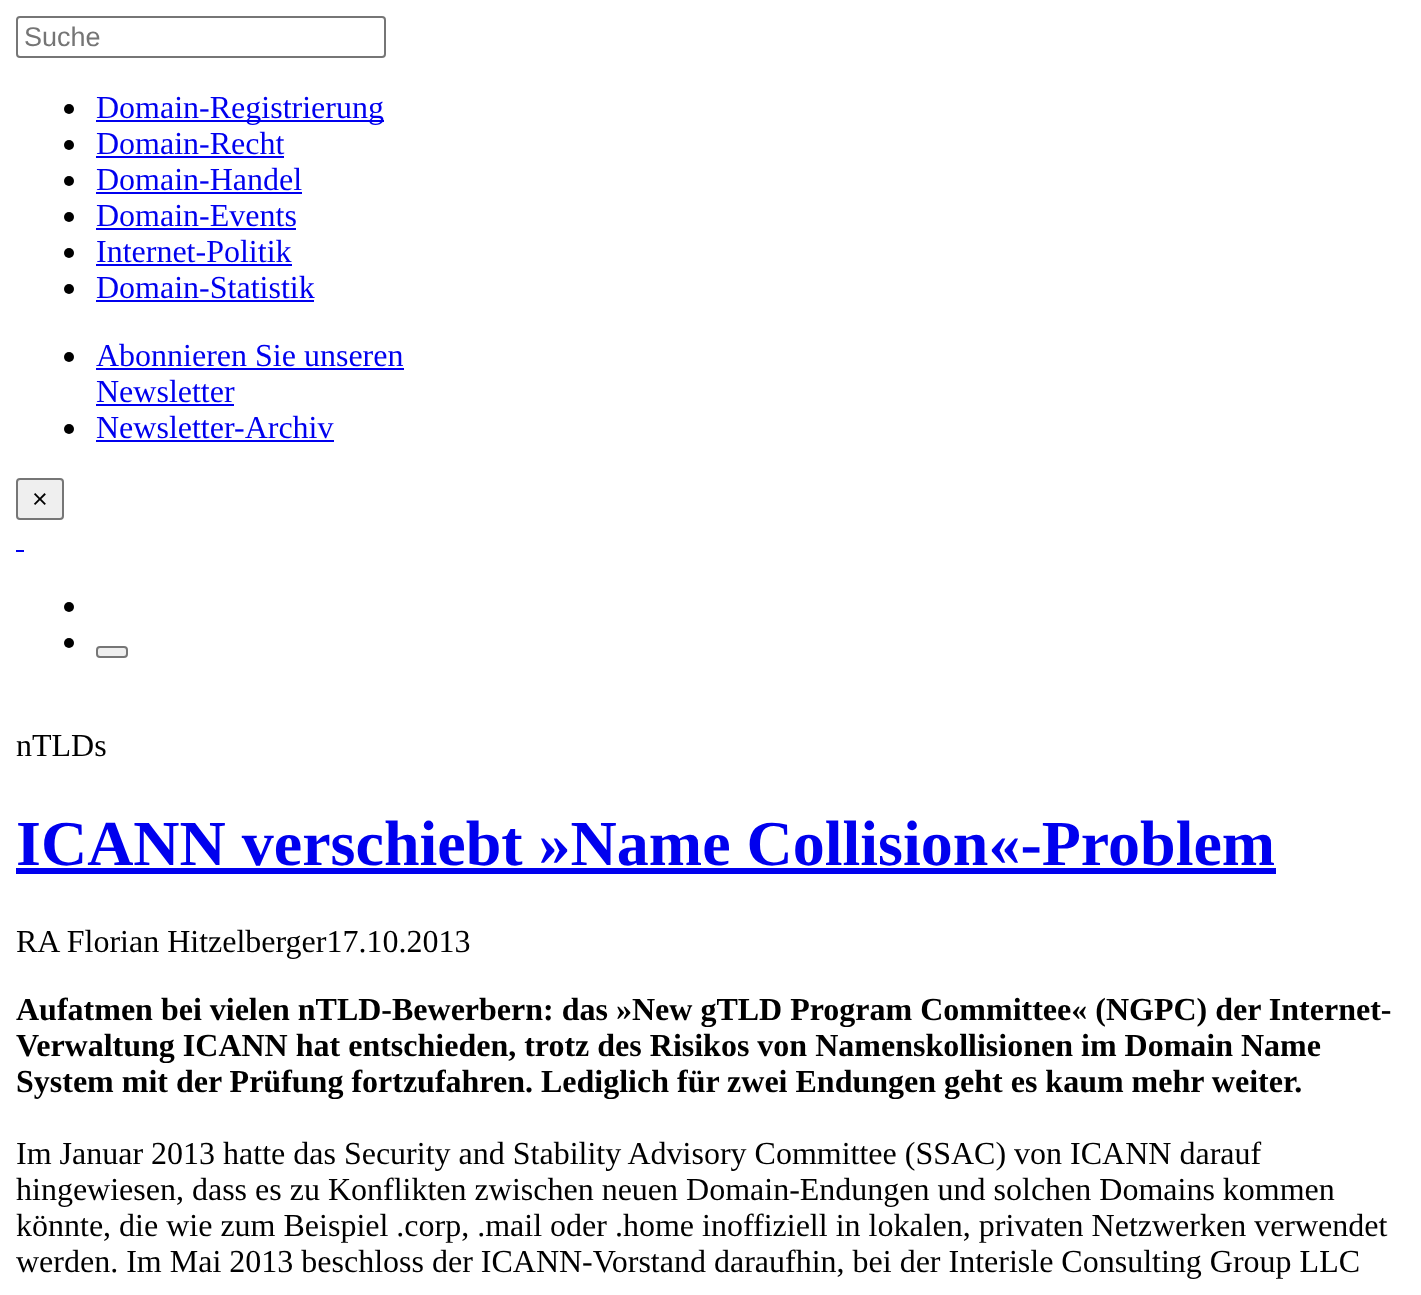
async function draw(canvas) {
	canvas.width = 1421;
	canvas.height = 1295;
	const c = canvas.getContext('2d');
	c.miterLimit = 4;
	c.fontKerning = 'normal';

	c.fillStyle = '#fff';
	c.fillRect(0, 0, 1421, 1295);
	c.beginPath();
	c.roundRect(17, 17, 368, 40, 3);
	c.strokeStyle = '#767676';
	c.lineWidth = 2;
	c.stroke();
	c.font = '27px Liberation Sans';
	c.fillStyle = '#757575';
	c.fillText('Suche', 24, 46);
	c.fillStyle = '#000';
	c.beginPath();
	c.arc(69, 109, 5, 0, 2 * Math.PI);
	c.fill();
	c.fillStyle = '#00e';
	c.fillRect(96, 120, 288, 2);
	c.font = '32px Liberation Serif';
	c.fillText('Domain-Registrierung', 96, 118);
	c.fillStyle = '#000';
	c.beginPath();
	c.arc(69, 145, 5, 0, 2 * Math.PI);
	c.fill();
	c.fillStyle = '#00e';
	c.fillText('Domain-Recht', 96, 154);
	c.fillRect(96, 156, 188, 2);
	c.fillStyle = '#000';
	c.beginPath();
	c.arc(69, 181, 5, 0, 2 * Math.PI);
	c.fill();
	c.fillStyle = '#00e';
	c.fillText('Domain-Handel', 96, 190);
	c.fillRect(96, 192, 206, 2);
	c.fillStyle = '#000';
	c.beginPath();
	c.arc(69, 217, 5, 0, 2 * Math.PI);
	c.fill();
	c.fillStyle = '#00e';
	c.fillText('Domain-Events', 96, 226);
	c.fillRect(96, 228, 200, 2);
	c.fillStyle = '#000';
	c.beginPath();
	c.arc(69, 253, 5, 0, 2 * Math.PI);
	c.fill();
	c.fillStyle = '#00e';
	c.fillText('Internet-Politik', 96, 262);
	c.fillRect(96, 264, 196, 2);
	c.fillStyle = '#000';
	c.beginPath();
	c.arc(69, 289, 5, 0, 2 * Math.PI);
	c.fill();
	c.fillStyle = '#00e';
	c.fillText('Domain-Statistik', 96, 298);
	c.fillRect(96, 300, 218, 2);
	c.fillStyle = '#000';
	c.beginPath();
	c.arc(69, 357, 5, 0, 2 * Math.PI);
	c.fill();
	c.fillStyle = '#00e';
	c.fillText('Abonnieren Sie unseren', 96, 366);
	c.fillRect(96, 368, 308, 2);
	c.fillText('Newsletter', 96, 402);
	c.fillRect(96, 404, 138, 2);
	c.fillStyle = '#000';
	c.beginPath();
	c.arc(69, 429, 5, 0, 2 * Math.PI);
	c.fill();
	c.fillStyle = '#00e';
	c.fillText('Newsletter-Archiv', 96, 438);
	c.fillRect(96, 440, 238, 2);
	c.fillStyle = '#efefef';
	c.beginPath();
	c.roundRect(17, 479, 46, 40, 3);
	c.fill();
	c.stroke();
	c.font = '27px Liberation Sans';
	c.fillStyle = '#000';
	c.fillText('×', 32, 508);
	c.fillStyle = '#00e';
	c.fillRect(16, 550, 8, 2);
	c.fillStyle = '#000';
	c.beginPath();
	c.arc(69, 607, 5, 0, 2 * Math.PI);
	c.fill();
	c.beginPath();
	c.arc(69, 643, 5, 0, 2 * Math.PI);
	c.fill();
	c.fillStyle = '#efefef';
	c.beginPath();
	c.roundRect(97, 647, 30, 10, 3);
	c.fill();
	c.stroke();
	c.font = '32px Liberation Serif';
	c.fillStyle = '#000';
	c.fillText('nTLDs', 16, 756);
	c.font = 'bold 64px Liberation Serif';
	c.fillStyle = '#00e';
	c.fillText('ICANN verschiebt »Name Collision«-Problem', 16, 865);
	c.fillRect(16, 868, 1260, 6);
	c.font = '32px Liberation Serif';
	c.fillStyle = '#000';
	c.fillText('RA Florian Hitzelberger17.10.2013', 16, 952);
	c.font = 'bold 32px Liberation Serif';
	for (const [text, x, y] of [
		['Aufatmen bei vielen nTLD-Bewerbern: das »New gTLD Program Committee« (NGPC) der Internet-', 16, 1020],
		['Verwaltung ICANN hat entschieden, trotz des Risikos von Namenskollisionen im Domain Name', 16, 1056],
		['System mit der Prüfung fortzufahren. Lediglich für zwei Endungen geht es kaum mehr weiter.', 16, 1092],
	]) {
		c.fillText(text, x, y);
	}
	c.font = '32px Liberation Serif';
	for (const [text, x, y] of [
		['Im Januar 2013 hatte das Security and Stability Advisory Committee (SSAC) von ICANN darauf', 16, 1164],
		['hingewiesen, dass es zu Konflikten zwischen neuen Domain-Endungen und solchen Domains kommen', 16, 1200],
		['könnte, die wie zum Beispiel .corp, .mail oder .home inoffiziell in lokalen, privaten Netzwerken verwendet', 16, 1236],
		['werden. Im Mai 2013 beschloss der ICANN-Vorstand daraufhin, bei der Interisle Consulting Group LLC', 16, 1272],
	]) {
		c.fillText(text, x, y);
	}
}

draw(document.querySelector('canvas'));
